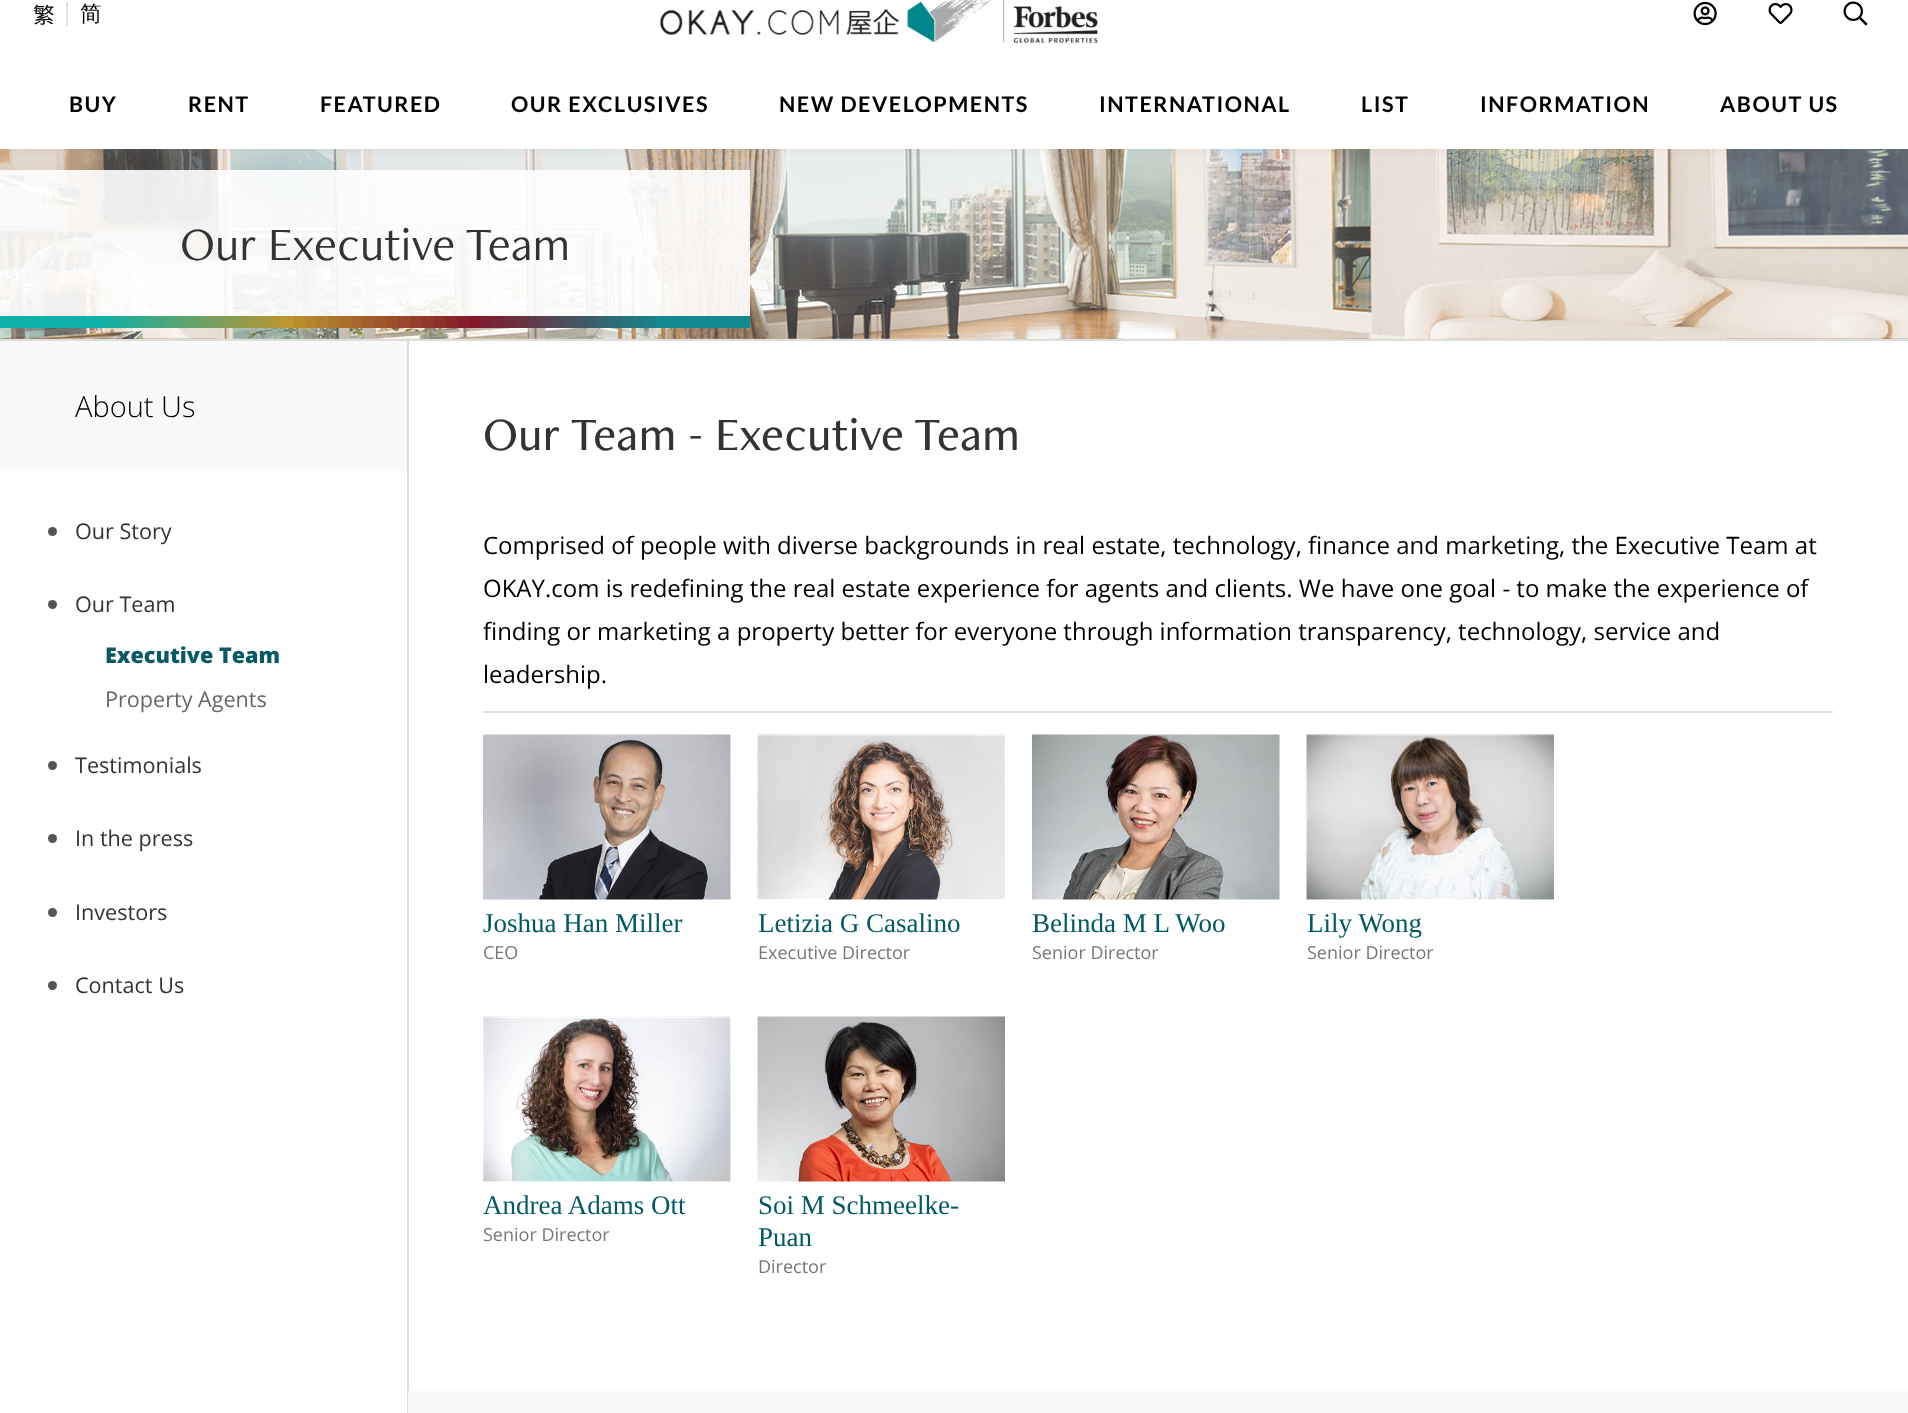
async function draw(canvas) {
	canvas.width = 1908;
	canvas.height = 1413;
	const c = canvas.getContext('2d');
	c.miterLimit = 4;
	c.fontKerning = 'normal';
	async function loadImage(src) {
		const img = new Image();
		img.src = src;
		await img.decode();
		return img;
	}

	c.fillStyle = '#fff';
	c.fillRect(0, 0, 1908, 1413);
	c.drawImage(await loadImage('img5.png'), 0, 149, 1908, 190);
	c.fillStyle = '#999';
	c.filter = 'blur(7.5px)';
	c.beginPath();
	c.rect(15, -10, 1878, 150);
	c.fill();
	c.filter = 'none';
	c.fillStyle = '#fff';
	c.fillRect(0, 0, 1908, 149);
	c.font = '21.6px Noto Sans TC';
	c.fillStyle = '#000';
	c.fillText('繁', 33, 23);
	c.fillStyle = '#e0e0e0';
	c.fillRect(66, 2, 2, 24);
	c.font = '500 21.6px WenQuanYi Zen Hei';
	c.fillStyle = '#000';
	c.fillText('简', 80, 21);
	c.drawImage(await loadImage('img1.png'), 660, 0, 438, 43);
	c.drawImage(await loadImage('img2.png'), 1693, 1, 24, 25);
	c.drawImage(await loadImage('img3.png'), 1768, 3, 25, 21);
	c.drawImage(await loadImage('img4.png'), 1843, 1, 25, 25);
	c.letterSpacing = '1.5px';
	c.font = 'bold 21.6px Lato';
	for (const [text, x, y] of [
		['BUY', 69, 112],
		['RENT', 188, 112],
		['FEATURED', 320, 112],
		['OUR EXCLUSIVES', 511, 112],
		['NEW DEVELOPMENTS', 779, 112],
		['INTERNATIONAL', 1099, 112],
		['LIST', 1361, 112],
		['INFORMATION', 1480, 112],
		['ABOUT US', 1720, 112],
	]) {
		c.fillText(text, x, y);
	}
	c.fillStyle = '#ddd';
	c.fillRect(0, 339, 1908, 2);
	c.fillStyle = '#ffffffe6';
	c.fillRect(0, 170, 750, 146);
	c.letterSpacing = '0px';
	c.font = '48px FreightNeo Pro';
	c.fillStyle = '#333';
	c.fillText('Our Executive Team', 180, 260);
	c.drawImage(await loadImage('img6.png'), 0, 316, 750, 12);
	c.fillStyle = '#ddd';
	c.fillRect(407, 341, 2, 1072);
	c.fillStyle = '#f9f9f9';
	c.fillRect(0, 341, 407, 130);
	c.font = '300 29px Open Sans';
	c.fillStyle = '#000';
	c.fillText('About Us', 75, 417);
	c.fillStyle = '#555';
	c.beginPath();
	c.arc(52.5, 531.5, 4.5, 0, 2 * Math.PI);
	c.fill();
	c.font = '21.6px Open Sans';
	c.fillStyle = '#333';
	c.fillText('Our Story', 75, 539);
	c.fillStyle = '#555';
	c.beginPath();
	c.arc(52.5, 604.5, 4.5, 0, 2 * Math.PI);
	c.fill();
	c.fillStyle = '#333';
	c.fillText('Our Team', 75, 612);
	c.font = '800 21.6px Open Sans';
	c.fillStyle = '#085963';
	c.fillText('Executive Team', 105, 663);
	c.font = '21.6px Open Sans';
	c.fillStyle = '#666';
	c.fillText('Property Agents', 105, 707);
	c.fillStyle = '#555';
	c.beginPath();
	c.arc(52.5, 765.5, 4.5, 0, 2 * Math.PI);
	c.fill();
	c.fillStyle = '#333';
	c.fillText('Testimonials', 75, 773);
	c.fillStyle = '#555';
	c.beginPath();
	c.arc(52.5, 838.5, 4.5, 0, 2 * Math.PI);
	c.fill();
	c.fillStyle = '#333';
	c.fillText('In the press', 75, 846);
	c.fillStyle = '#555';
	c.beginPath();
	c.arc(52.5, 912.5, 4.5, 0, 2 * Math.PI);
	c.fill();
	c.fillStyle = '#333';
	c.fillText('Investors', 75, 920);
	c.fillStyle = '#555';
	c.beginPath();
	c.arc(52.5, 985.5, 4.5, 0, 2 * Math.PI);
	c.fill();
	c.fillStyle = '#333';
	c.fillText('Contact Us', 75, 993);
	c.font = '500 48px Freight Neo Pro';
	c.fillText('Our Team - Executive Team', 483, 450);
	c.fillStyle = '#ddd';
	c.fillRect(483, 711, 1350, 2);
	c.font = '24px Open Sans';
	c.fillStyle = '#000';
	for (const [text, x, y] of [
		['Comprised of people with diverse backgrounds in real estate, technology, finance and marketing, the Executive Team at', 483, 554],
		['OKAY.com is redefining the real estate experience for agents and clients. We have one goal - to make the experience of', 483, 597],
		['finding or marketing a property better for everyone through information transparency, technology, service and', 483, 640],
		['leadership.', 483, 683],
	]) {
		c.fillText(text, x, y);
	}
	c.drawImage(await loadImage('img7.png'), 483, 734, 248, 166);
	c.font = '27px Liberation Serif';
	c.fillStyle = '#005964';
	c.fillText('Joshua Han Miller', 483, 932);
	c.font = '18px Open Sans';
	c.fillStyle = '#777';
	c.fillText('CEO', 483, 959);
	c.drawImage(await loadImage('img8.png'), 757, 734, 248, 166);
	c.font = '27px Liberation Serif';
	c.fillStyle = '#005964';
	c.fillText('Letizia G Casalino', 758, 932);
	c.font = '18px Open Sans';
	c.fillStyle = '#777';
	c.fillText('Executive Director', 758, 959);
	c.drawImage(await loadImage('img9.png'), 1032, 734, 248, 166);
	c.font = '27px Liberation Serif';
	c.fillStyle = '#005964';
	c.fillText('Belinda M L Woo', 1032, 932);
	c.font = '18px Open Sans';
	c.fillStyle = '#777';
	c.fillText('Senior Director', 1032, 959);
	c.drawImage(await loadImage('img10.png'), 1306, 734, 248, 166);
	c.font = '27px Liberation Serif';
	c.fillStyle = '#005964';
	c.fillText('Lily Wong', 1307, 932);
	c.font = '18px Open Sans';
	c.fillStyle = '#777';
	c.fillText('Senior Director', 1307, 959);
	c.drawImage(await loadImage('img11.png'), 483, 1016, 248, 166);
	c.font = '27px Liberation Serif';
	c.fillStyle = '#005964';
	c.fillText('Andrea Adams Ott', 483, 1214);
	c.font = '18px Open Sans';
	c.fillStyle = '#777';
	c.fillText('Senior Director', 483, 1241);
	c.drawImage(await loadImage('img12.png'), 757, 1016, 248, 166);
	c.font = '27px Liberation Serif';
	c.fillStyle = '#005964';
	c.fillText('Soi M Schmeelke-', 758, 1214);
	c.fillText('Puan', 758, 1246);
	c.font = '18px Open Sans';
	c.fillStyle = '#777';
	c.fillText('Director', 758, 1273);
	c.fillStyle = '#f9f9f9';
	c.fillRect(408, 1391, 1500, 22);
}

draw(document.querySelector('canvas'));
